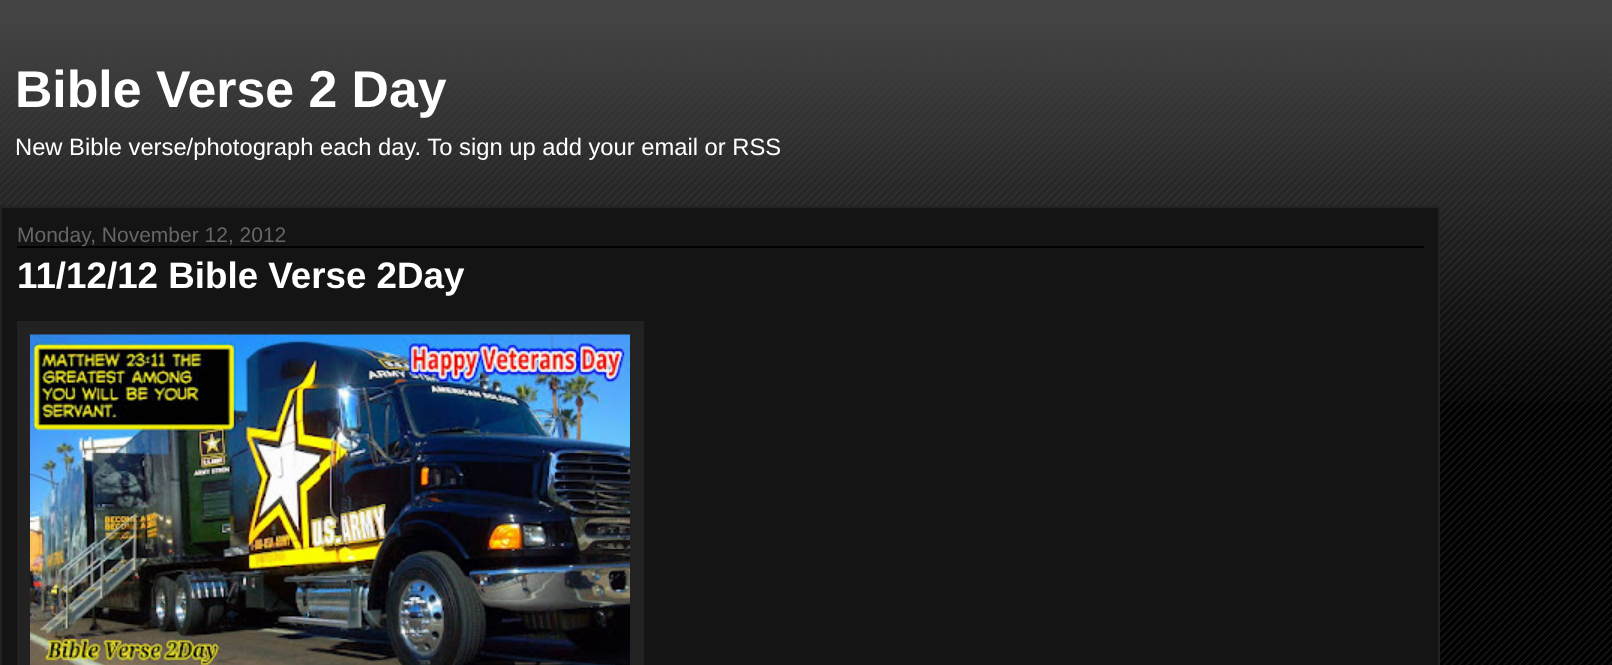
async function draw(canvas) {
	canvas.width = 1612;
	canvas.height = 665;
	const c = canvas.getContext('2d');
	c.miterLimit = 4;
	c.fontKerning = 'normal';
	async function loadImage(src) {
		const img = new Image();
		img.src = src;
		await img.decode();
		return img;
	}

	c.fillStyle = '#000';
	c.fillRect(0, 0, 1612, 665);
	c.drawImage(await loadImage('img1.png'), 0, 20, 1612, 645);
	c.drawImage(await loadImage('img2.png'), 0, 0, 1612, 402);
	c.font = 'bold 51.75px Liberation Sans';
	c.fillStyle = '#fff';
	c.fillText('Bible Verse 2 Day', 15, 107);
	c.font = '23.75px Liberation Sans';
	c.fillText('New Bible verse/photograph each day. To sign up add your email or RSS', 15, 155);
	c.fillStyle = '#141414';
	c.beginPath();
	c.rect(1, 207, 1438, 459);
	c.fill();
	c.strokeStyle = '#222';
	c.lineWidth = 2;
	c.stroke();
	c.fillStyle = '#000';
	c.fillRect(17, 246, 1407, 2);
	c.font = '21px Liberation Sans';
	c.fillStyle = '#666';
	c.fillText('Monday, November 12, 2012', 17, 242);
	c.font = 'bold 36.75px Liberation Sans';
	c.fillStyle = '#fff';
	c.fillText('11/12/12 Bible Verse 2Day', 17, 288);
	c.fillStyle = '#222';
	c.fillRect(17, 321, 627, 344);
	c.drawImage(await loadImage('img3.png'), 30, 334, 600, 331);
}

draw(document.querySelector('canvas'));
